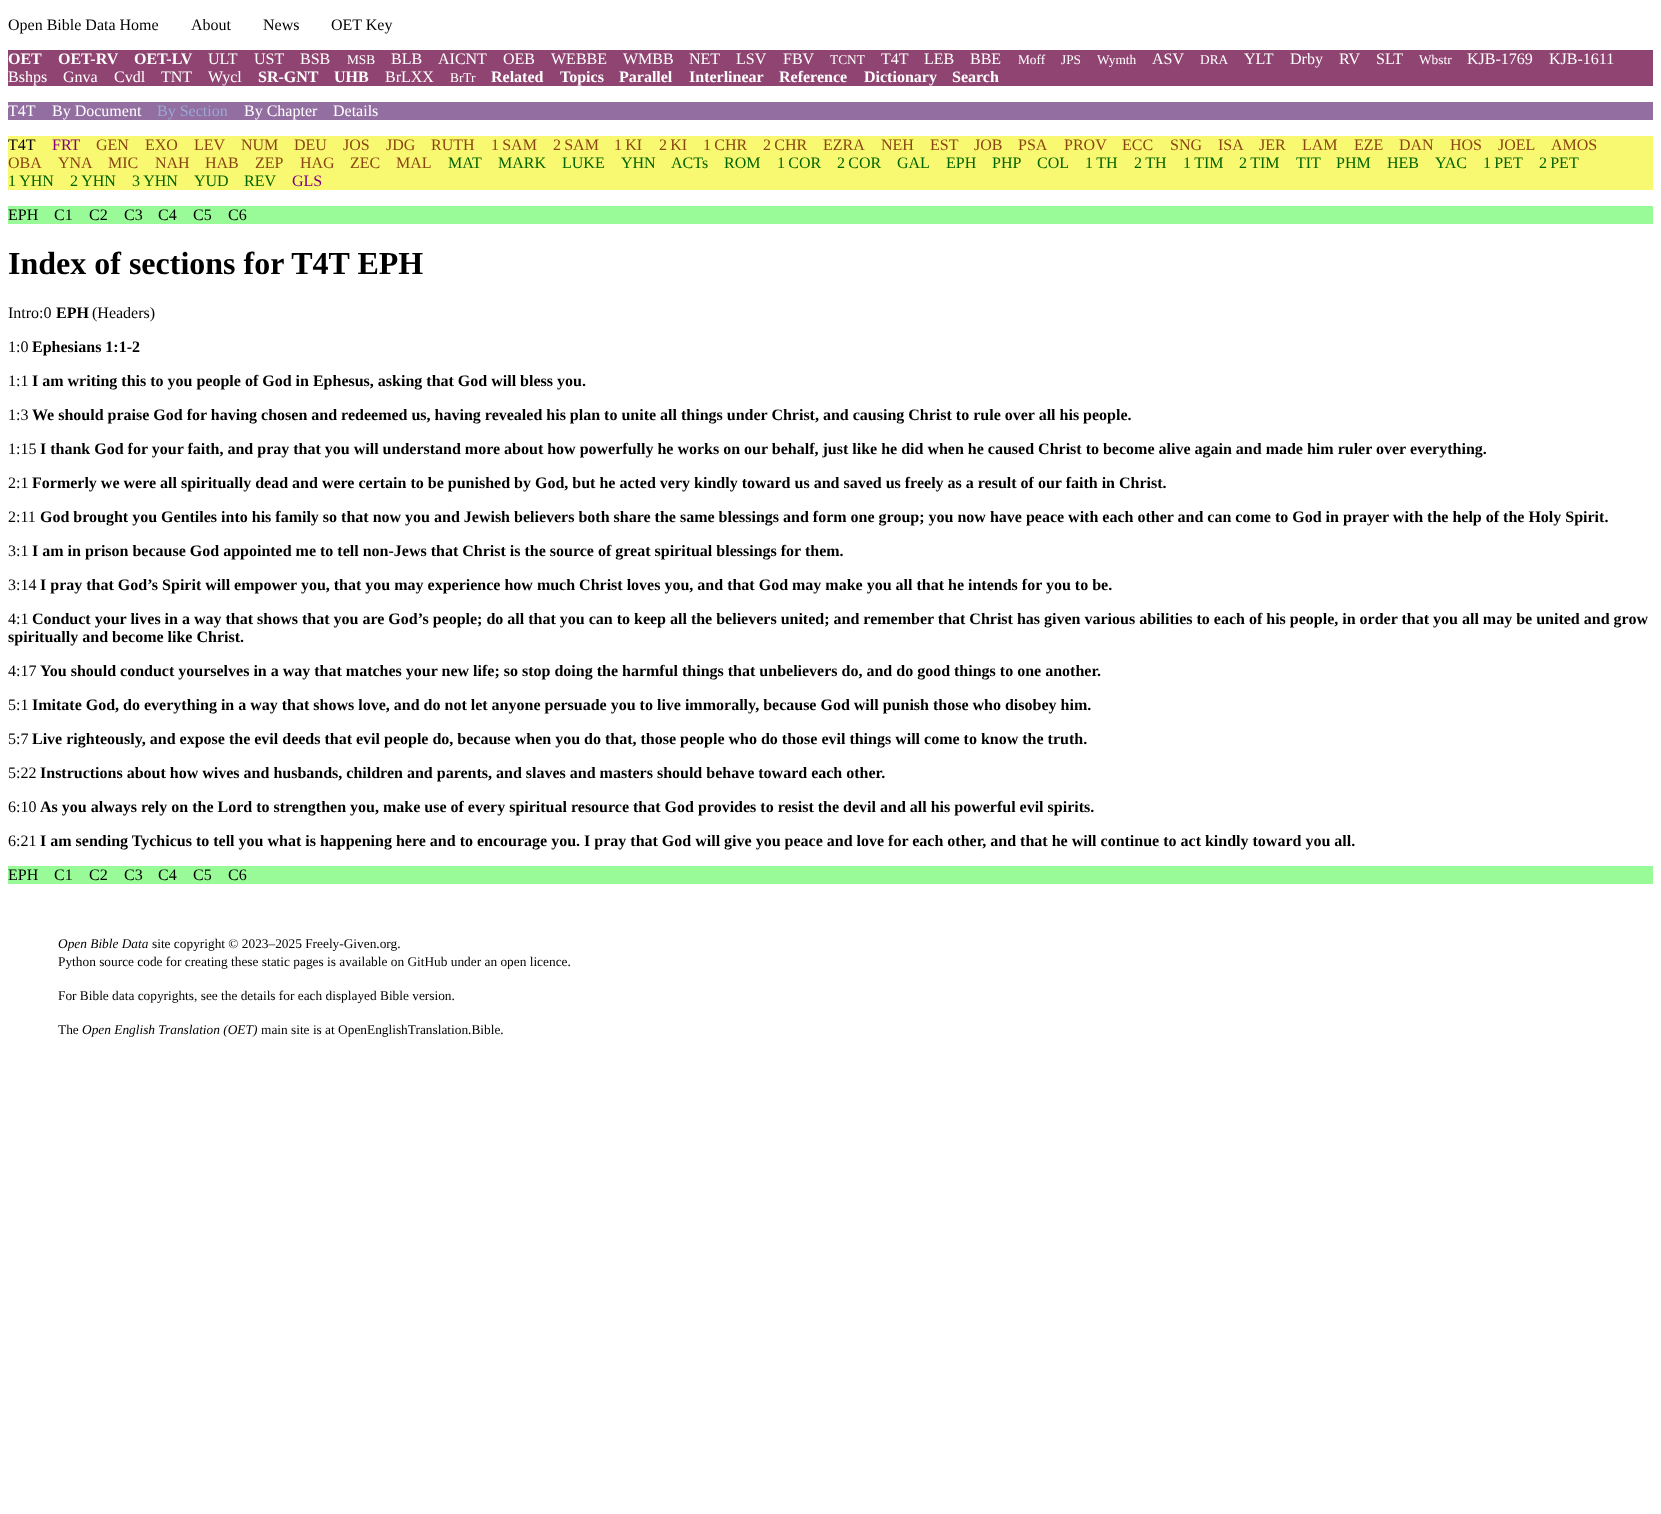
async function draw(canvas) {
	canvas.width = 1661;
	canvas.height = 1514;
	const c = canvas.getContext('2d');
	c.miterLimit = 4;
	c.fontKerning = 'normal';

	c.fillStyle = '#fff';
	c.fillRect(0, 0, 1661, 1514);
	c.font = '16px Liberation Serif';
	c.fillStyle = '#000';
	for (const [text, x, y] of [
		['Open Bible Data Home', 8, 30],
		['About', 191, 30],
		['News', 263, 30],
		['OET Key', 331, 30],
	]) {
		c.fillText(text, x, y);
	}
	c.fillStyle = '#904471';
	c.fillRect(8, 50, 1645, 36);
	c.font = 'bold 16px Liberation Serif';
	c.fillStyle = '#fff';
	for (const [text, x, y] of [
		['OET', 8, 64],
		['OET-RV', 58, 64],
		['OET-LV', 134, 64],
	]) {
		c.fillText(text, x, y);
	}
	c.font = '16px Liberation Serif';
	for (const [text, x, y] of [
		['ULT', 208, 64],
		['UST', 254, 64],
		['BSB', 300, 64],
	]) {
		c.fillText(text, x, y);
	}
	c.font = '13.35px Liberation Serif';
	c.fillText('MSB', 347, 64);
	c.font = '16px Liberation Serif';
	for (const [text, x, y] of [
		['BLB', 391, 64],
		['AICNT', 438, 64],
		['OEB', 503, 64],
		['WEBBE', 551, 64],
		['WMBB', 623, 64],
		['NET', 689, 64],
		['LSV', 736, 64],
		['FBV', 783, 64],
	]) {
		c.fillText(text, x, y);
	}
	c.font = '13.35px Liberation Serif';
	c.fillText('TCNT', 830, 64);
	c.font = '16px Liberation Serif';
	for (const [text, x, y] of [
		['T4T', 881, 64],
		['LEB', 924, 64],
		['BBE', 970, 64],
	]) {
		c.fillText(text, x, y);
	}
	c.font = '13.35px Liberation Serif';
	for (const [text, x, y] of [
		['Moff', 1018, 64],
		['JPS', 1061, 64],
		['Wymth', 1097, 64],
	]) {
		c.fillText(text, x, y);
	}
	c.font = '16px Liberation Serif';
	c.fillText('ASV', 1152, 64);
	c.font = '13.35px Liberation Serif';
	c.fillText('DRA', 1200, 64);
	c.font = '16px Liberation Serif';
	for (const [text, x, y] of [
		['YLT', 1244, 64],
		['Drby', 1290, 64],
		['RV', 1339, 64],
		['SLT', 1376, 64],
	]) {
		c.fillText(text, x, y);
	}
	c.font = '13.35px Liberation Serif';
	c.fillText('Wbstr', 1419, 64);
	c.font = '16px Liberation Serif';
	for (const [text, x, y] of [
		['KJB-1769', 1467, 64],
		['KJB-1611', 1549, 64],
		['Bshps', 8, 82],
		['Gnva', 63, 82],
		['Cvdl', 114, 82],
		['TNT', 161, 82],
		['Wycl', 208, 82],
	]) {
		c.fillText(text, x, y);
	}
	c.font = 'bold 16px Liberation Serif';
	c.fillText('SR-GNT', 258, 82);
	c.fillText('UHB', 334, 82);
	c.font = '16px Liberation Serif';
	c.fillText('BrLXX', 385, 82);
	c.font = '13.35px Liberation Serif';
	c.fillText('BrTr', 450, 82);
	c.font = 'bold 16px Liberation Serif';
	for (const [text, x, y] of [
		['Related', 491, 82],
		['Topics', 560, 82],
		['Parallel', 619, 82],
		['Interlinear', 689, 82],
		['Reference', 779, 82],
		['Dictionary', 864, 82],
		['Search', 952, 82],
	]) {
		c.fillText(text, x, y);
	}
	c.fillStyle = '#936ea1';
	c.fillRect(8, 102, 1645, 18);
	c.font = '16px Liberation Serif';
	c.fillStyle = '#fff';
	c.fillText('T4T', 8, 116);
	c.fillText('By Document', 52, 116);
	c.fillStyle = '#98a9d4';
	c.fillText('By Section', 157, 116);
	c.fillStyle = '#fff';
	c.fillText('By Chapter', 244, 116);
	c.fillText('Details', 333, 116);
	c.fillStyle = '#f9f871';
	c.fillRect(8, 136, 1645, 54);
	c.fillStyle = '#000';
	c.fillText('T4T', 8, 150);
	c.fillStyle = '#800080';
	c.fillText('FRT', 52, 150);
	c.fillStyle = '#8b4513';
	for (const [text, x, y] of [
		['GEN', 96, 150],
		['EXO', 145, 150],
		['LEV', 194, 150],
		['NUM', 241, 150],
		['DEU', 294, 150],
		['JOS', 343, 150],
		['JDG', 386, 150],
		['RUTH', 431, 150],
		['1 SAM', 491, 150],
		['2 SAM', 553, 150],
		['1 KI', 614, 150],
		['2 KI', 659, 150],
		['1 CHR', 703, 150],
		['2 CHR', 763, 150],
		['EZRA', 823, 150],
		['NEH', 881, 150],
		['EST', 930, 150],
		['JOB', 974, 150],
		['PSA', 1018, 150],
		['PROV', 1064, 150],
		['ECC', 1122, 150],
		['SNG', 1170, 150],
		['ISA', 1218, 150],
		['JER', 1259, 150],
		['LAM', 1302, 150],
		['EZE', 1354, 150],
		['DAN', 1399, 150],
		['HOS', 1450, 150],
		['JOEL', 1498, 150],
		['AMOS', 1551, 150],
		['OBA', 8, 168],
		['YNA', 58, 168],
		['MIC', 108, 168],
		['NAH', 155, 168],
		['HAB', 205, 168],
		['ZEP', 255, 168],
		['HAG', 300, 168],
		['ZEC', 350, 168],
		['MAL', 396, 168],
	]) {
		c.fillText(text, x, y);
	}
	c.fillStyle = '#006400';
	for (const [text, x, y] of [
		['MAT', 448, 168],
		['MARK', 498, 168],
		['LUKE', 562, 168],
		['YHN', 621, 168],
		['ACTs', 671, 168],
		['ROM', 724, 168],
		['1 COR', 777, 168],
		['2 COR', 837, 168],
		['GAL', 897, 168],
		['EPH', 946, 168],
		['PHP', 992, 168],
		['COL', 1037, 168],
		['1 TH', 1085, 168],
		['2 TH', 1134, 168],
		['1 TIM', 1183, 168],
		['2 TIM', 1239, 168],
		['TIT', 1296, 168],
		['PHM', 1336, 168],
		['HEB', 1387, 168],
		['YAC', 1435, 168],
		['1 PET', 1483, 168],
		['2 PET', 1539, 168],
		['1 YHN', 8, 186],
		['2 YHN', 70, 186],
		['3 YHN', 132, 186],
		['YUD', 194, 186],
		['REV', 244, 186],
	]) {
		c.fillText(text, x, y);
	}
	c.fillStyle = '#800080';
	c.fillText('GLS', 292, 186);
	c.fillStyle = '#98fb98';
	c.fillRect(8, 206, 1645, 18);
	c.fillStyle = '#000';
	for (const [text, x, y] of [
		['EPH', 8, 220],
		['C1', 54, 220],
		['C2', 89, 220],
		['C3', 124, 220],
		['C4', 158, 220],
		['C5', 193, 220],
		['C6', 228, 220],
	]) {
		c.fillText(text, x, y);
	}
	c.font = 'bold 32px Liberation Serif';
	c.fillText('Index of sections for T4T EPH', 8, 274);
	c.font = '16px Liberation Serif';
	c.fillText('Intro:0', 8, 318);
	c.font = 'bold 16px Liberation Serif';
	c.fillText('EPH', 56, 318);
	c.font = '16px Liberation Serif';
	c.fillText('(Headers)', 92, 318);
	c.fillText('1:0', 8, 352);
	c.font = 'bold 16px Liberation Serif';
	c.fillText('Ephesians 1:1-2', 32, 352);
	c.font = '16px Liberation Serif';
	c.fillText('1:1', 8, 386);
	c.font = 'bold 16px Liberation Serif';
	c.fillText('I am writing this to you people of God in Ephesus, asking that God will bless you.', 32, 386);
	c.font = '16px Liberation Serif';
	c.fillText('1:3', 8, 420);
	c.font = 'bold 16px Liberation Serif';
	c.fillText('We should praise God for having chosen and redeemed us, having revealed his plan to unite all things under Christ, and causing Christ to rule over all his people.', 32, 420);
	c.font = '16px Liberation Serif';
	c.fillText('1:15', 8, 454);
	c.font = 'bold 16px Liberation Serif';
	c.fillText('I thank God for your faith, and pray that you will understand more about how powerfully he works on our behalf, just like he did when he caused Christ to become alive again and made him ruler over everything.', 40, 454);
	c.font = '16px Liberation Serif';
	c.fillText('2:1', 8, 488);
	c.font = 'bold 16px Liberation Serif';
	c.fillText('Formerly we were all spiritually dead and were certain to be punished by God, but he acted very kindly toward us and saved us freely as a result of our faith in Christ.', 32, 488);
	c.font = '16px Liberation Serif';
	c.fillText('2:11', 8, 522);
	c.font = 'bold 16px Liberation Serif';
	c.fillText('God brought you Gentiles into his family so that now you and Jewish believers both share the same blessings and form one group; you now have peace with each other and can come to God in prayer with the help of the Holy Spirit.', 40, 522);
	c.font = '16px Liberation Serif';
	c.fillText('3:1', 8, 556);
	c.font = 'bold 16px Liberation Serif';
	c.fillText('I am in prison because God appointed me to tell non-Jews that Christ is the source of great spiritual blessings for them.', 32, 556);
	c.font = '16px Liberation Serif';
	c.fillText('3:14', 8, 590);
	c.font = 'bold 16px Liberation Serif';
	c.fillText('I pray that God’s Spirit will empower you, that you may experience how much Christ loves you, and that God may make you all that he intends for you to be.', 40, 590);
	c.font = '16px Liberation Serif';
	c.fillText('4:1', 8, 624);
	c.font = 'bold 16px Liberation Serif';
	c.fillText('Conduct your lives in a way that shows that you are God’s people; do all that you can to keep all the believers united; and remember that Christ has given various abilities to each of his people, in order that you all may be united and grow', 32, 624);
	c.fillText('spiritually and become like Christ.', 8, 642);
	c.font = '16px Liberation Serif';
	c.fillText('4:17', 8, 676);
	c.font = 'bold 16px Liberation Serif';
	c.fillText('You should conduct yourselves in a way that matches your new life; so stop doing the harmful things that unbelievers do, and do good things to one another.', 40, 676);
	c.font = '16px Liberation Serif';
	c.fillText('5:1', 8, 710);
	c.font = 'bold 16px Liberation Serif';
	c.fillText('Imitate God, do everything in a way that shows love, and do not let anyone persuade you to live immorally, because God will punish those who disobey him.', 32, 710);
	c.font = '16px Liberation Serif';
	c.fillText('5:7', 8, 744);
	c.font = 'bold 16px Liberation Serif';
	c.fillText('Live righteously, and expose the evil deeds that evil people do, because when you do that, those people who do those evil things will come to know the truth.', 32, 744);
	c.font = '16px Liberation Serif';
	c.fillText('5:22', 8, 778);
	c.font = 'bold 16px Liberation Serif';
	c.fillText('Instructions about how wives and husbands, children and parents, and slaves and masters should behave toward each other.', 40, 778);
	c.font = '16px Liberation Serif';
	c.fillText('6:10', 8, 812);
	c.font = 'bold 16px Liberation Serif';
	c.fillText('As you always rely on the Lord to strengthen you, make use of every spiritual resource that God provides to resist the devil and all his powerful evil spirits.', 40, 812);
	c.font = '16px Liberation Serif';
	c.fillText('6:21', 8, 846);
	c.font = 'bold 16px Liberation Serif';
	c.fillText('I am sending Tychicus to tell you what is happening here and to encourage you. I pray that God will give you peace and love for each other, and that he will continue to act kindly toward you all.', 40, 846);
	c.fillStyle = '#98fb98';
	c.fillRect(8, 866, 1645, 18);
	c.font = '16px Liberation Serif';
	c.fillStyle = '#000';
	for (const [text, x, y] of [
		['EPH', 8, 880],
		['C1', 54, 880],
		['C2', 89, 880],
		['C3', 124, 880],
		['C4', 158, 880],
		['C5', 193, 880],
		['C6', 228, 880],
	]) {
		c.fillText(text, x, y);
	}
	c.font = 'italic 13.35px Liberation Serif';
	c.fillText('Open Bible Data', 58, 948);
	c.font = '13.35px Liberation Serif';
	for (const [text, x, y] of [
		['site copyright © 2023–2025 Freely-Given.org.', 152, 948],
		['Python source code for creating these static pages is available on GitHub under an open licence.', 58, 966],
		['For Bible data copyrights, see the details for each displayed Bible version.', 58, 1000],
		['The', 58, 1034],
	]) {
		c.fillText(text, x, y);
	}
	c.font = 'italic 13.35px Liberation Serif';
	c.fillText('Open English Translation (OET)', 82, 1034);
	c.font = '13.35px Liberation Serif';
	c.fillText('main site is at OpenEnglishTranslation.Bible.', 261, 1034);
}

draw(document.querySelector('canvas'));
